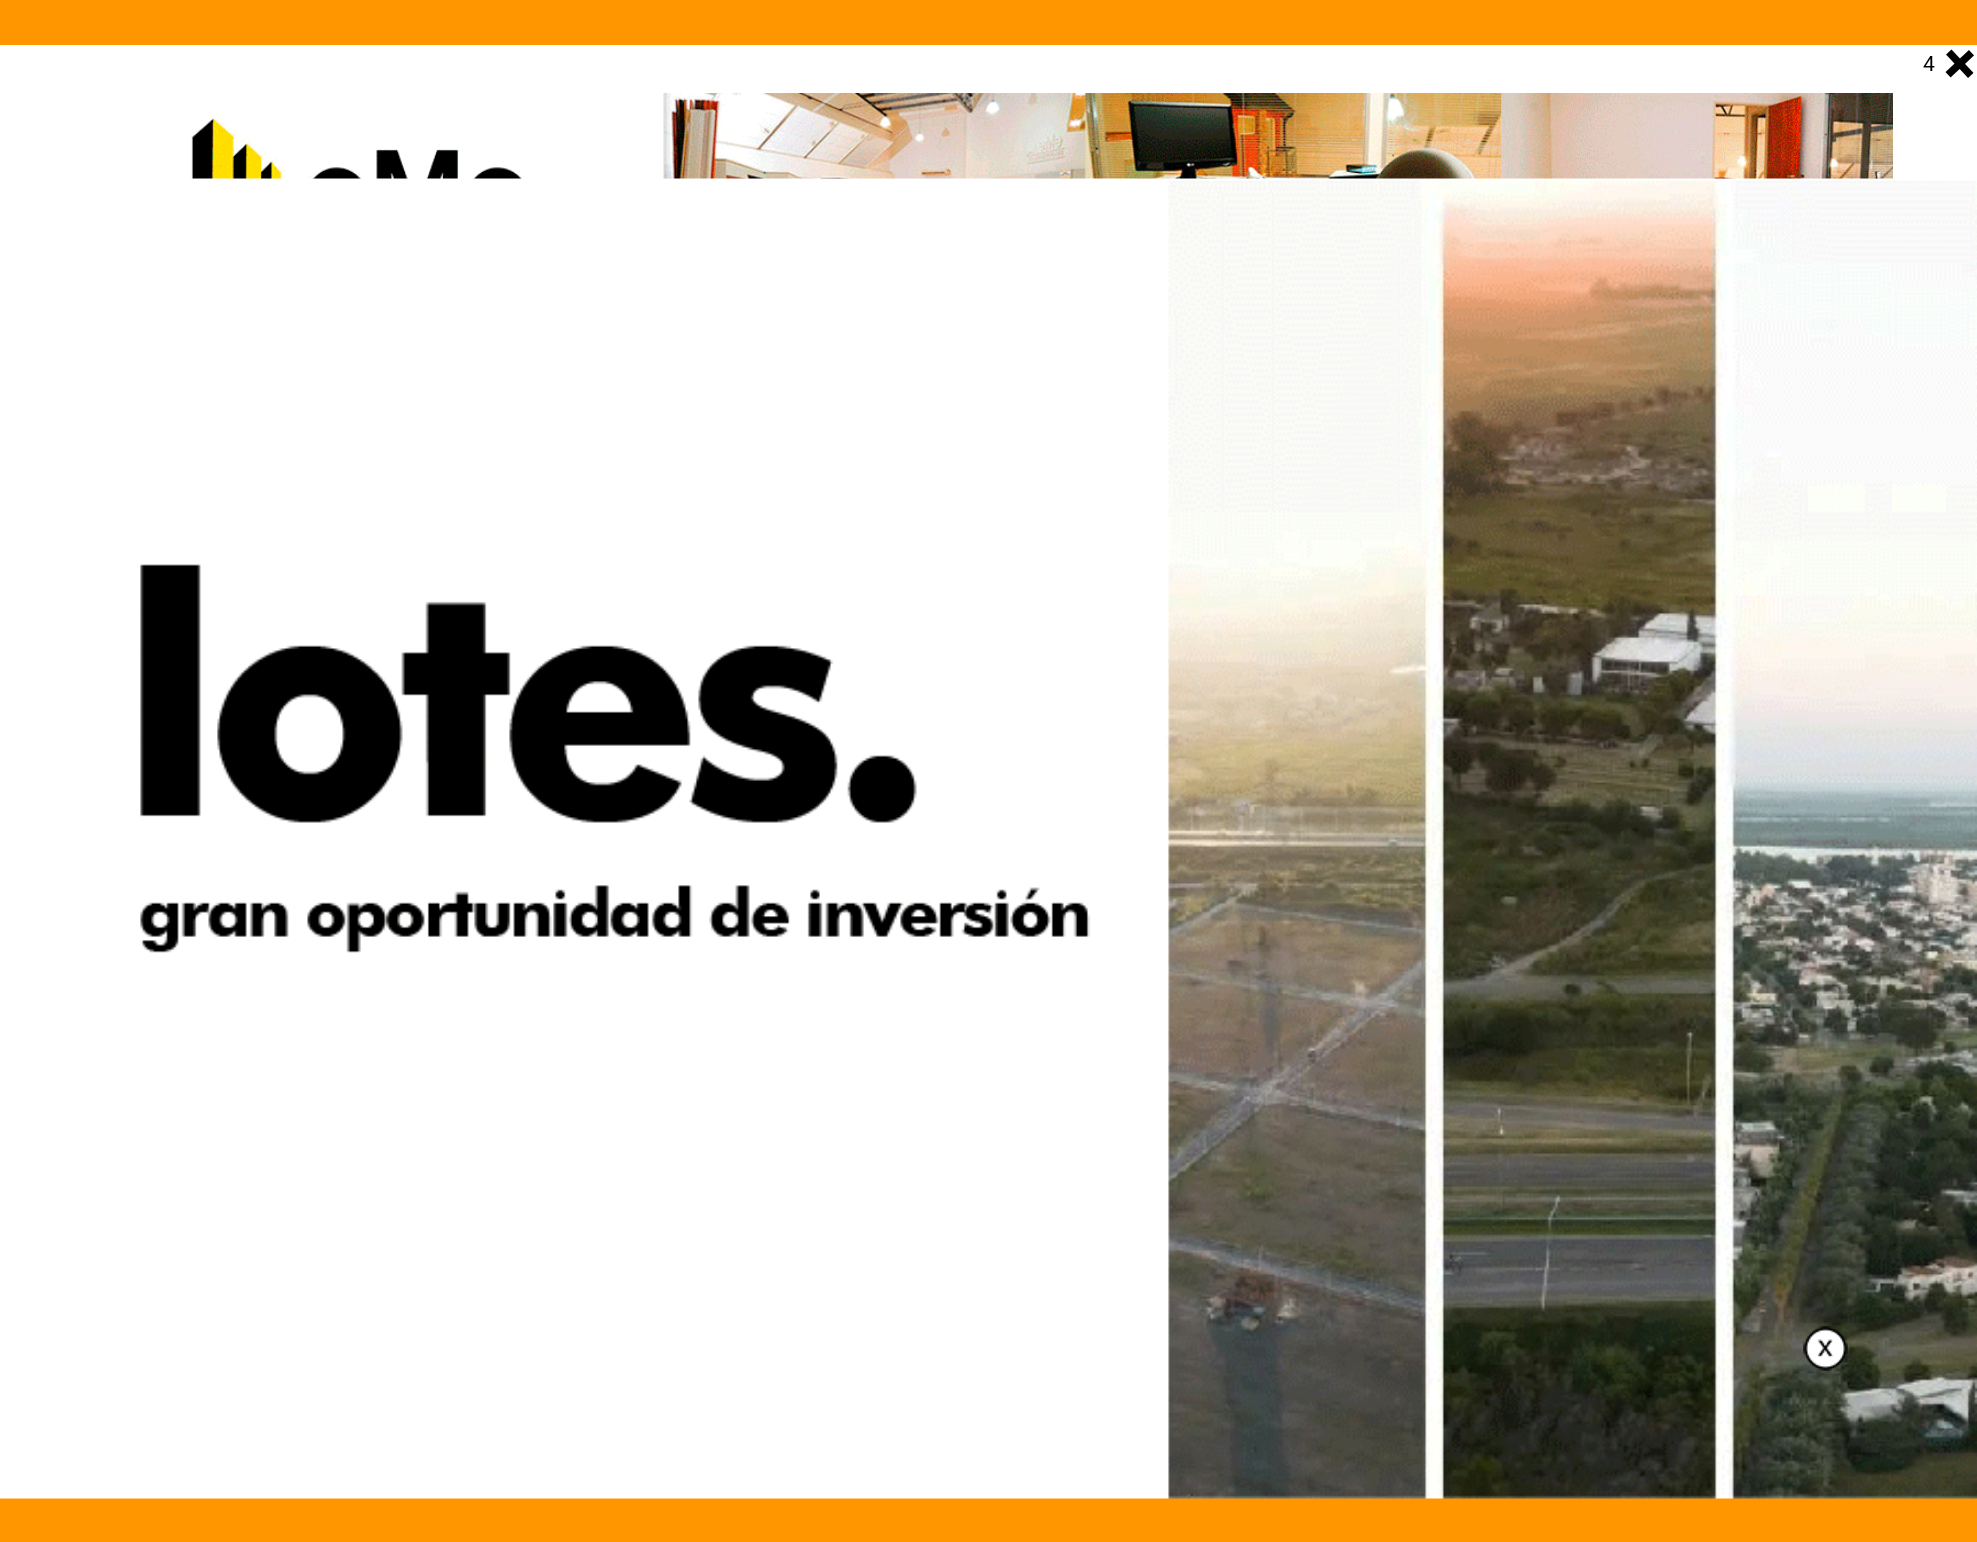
async function draw(canvas) {
	canvas.width = 1977;
	canvas.height = 1542;
	const c = canvas.getContext('2d');
	c.miterLimit = 4;
	c.fontKerning = 'normal';
	async function loadImage(src) {
		const img = new Image();
		img.src = src;
		await img.decode();
		return img;
	}

	c.fillStyle = '#ff9600';
	c.fillRect(0, 0, 1977, 1542);
	c.fillStyle = '#fff';
	c.fillRect(0, 45, 1977, 134);
	c.font = '21px Roboto';
	c.fillStyle = '#000';
	c.fillText('4', 1923, 71);
	c.drawImage(await loadImage('img1.png'), 1945, 49, 29, 29);
	c.drawImage(await loadImage('img3.png'), 164, 93, 1729, 86);
	c.drawImage(await loadImage('img2.png'), 0, 178, 1977, 1321);
	c.drawImage(await loadImage('img4.png'), 1803, 1326, 45, 45);
}

draw(document.querySelector('canvas'));
